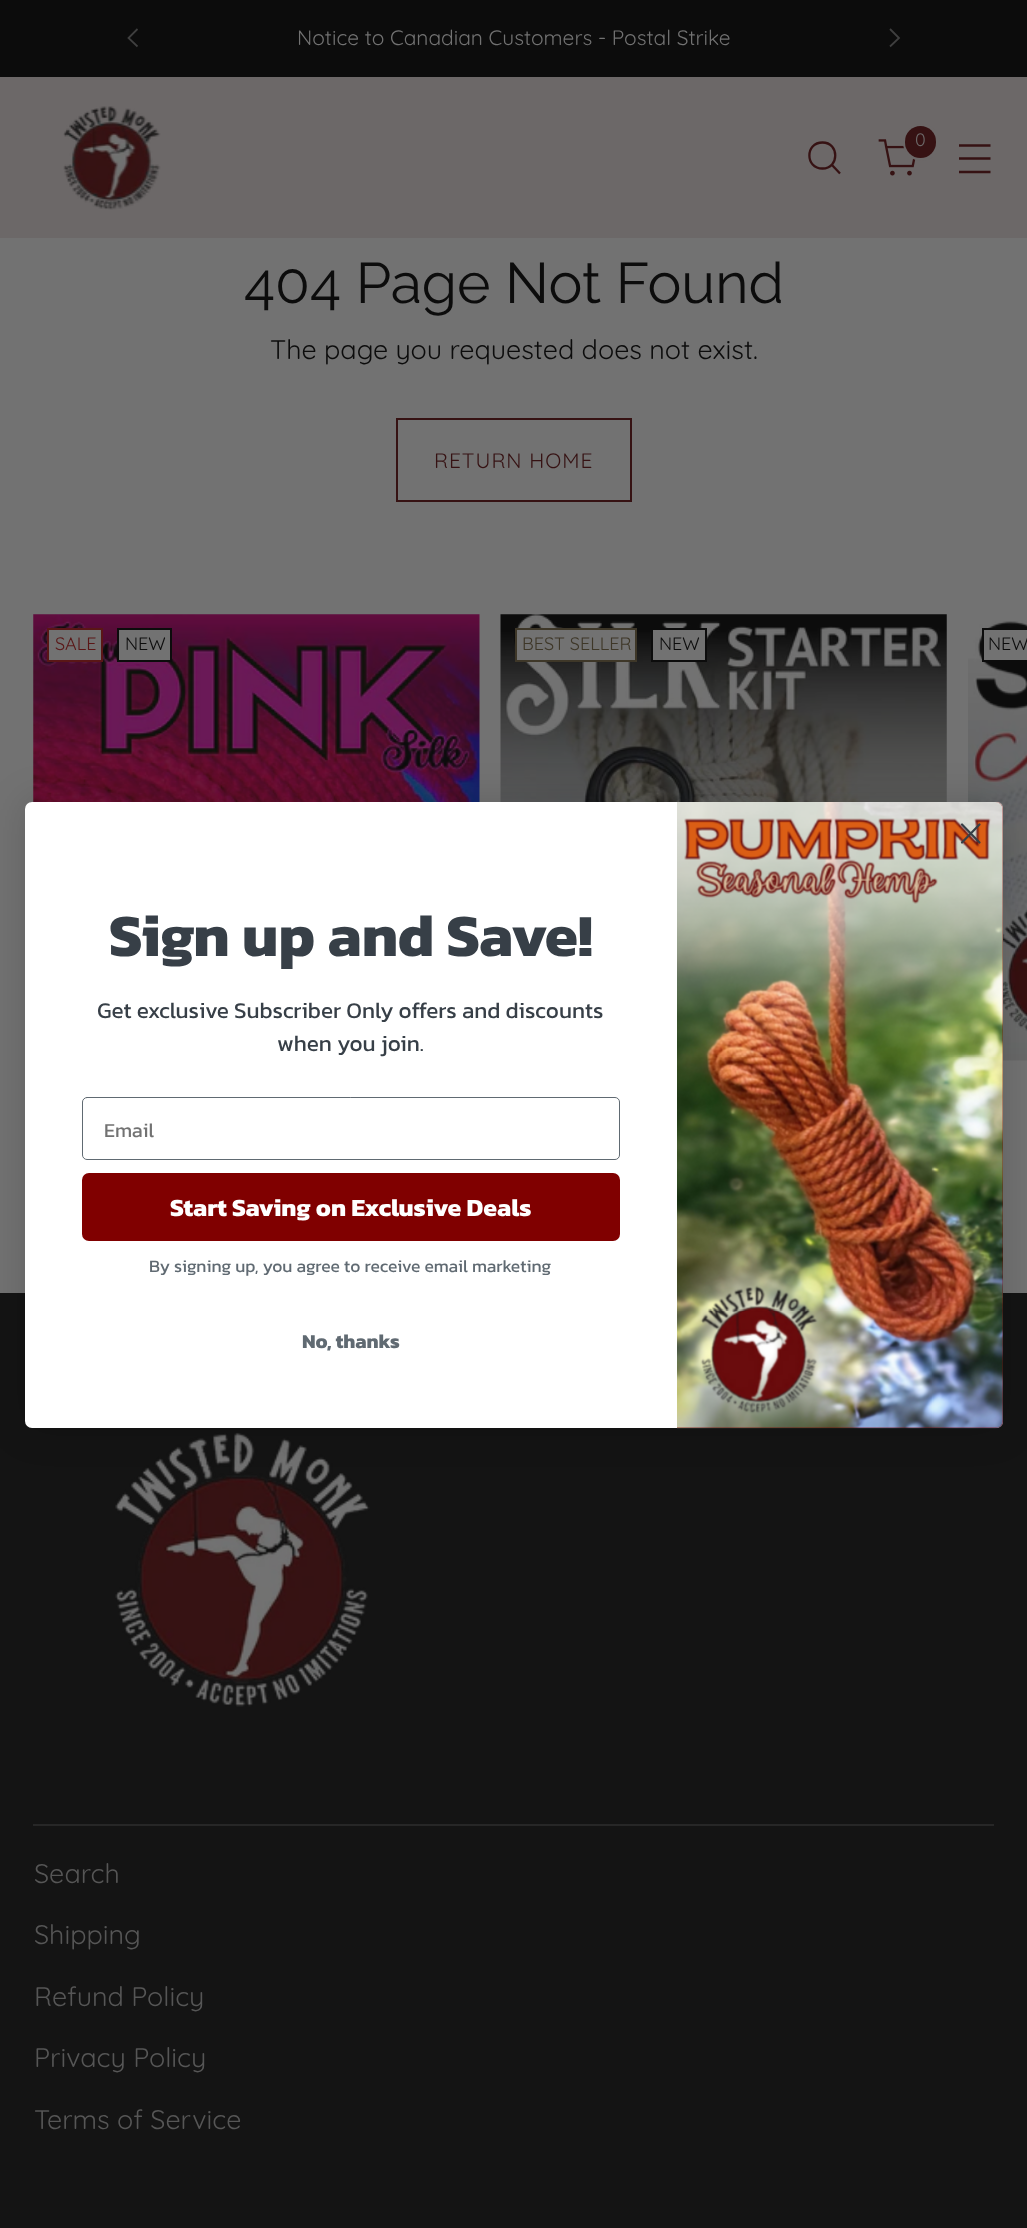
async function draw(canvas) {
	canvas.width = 1027;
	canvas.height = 2228;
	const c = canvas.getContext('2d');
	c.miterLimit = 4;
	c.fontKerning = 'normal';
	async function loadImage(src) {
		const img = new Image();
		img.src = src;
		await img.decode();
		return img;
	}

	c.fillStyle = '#727272';
	c.fillRect(0, 0, 1027, 2228);
	c.fillStyle = '#0c0c0c';
	c.fillRect(0, 0, 1027, 77);
	c.beginPath();
	c.moveTo(137.5, 29);
	c.lineTo(128.5, 38);
	c.lineTo(137.5, 46.5);
	c.strokeStyle = '#3f3f3f';
	c.lineWidth = 1.8;
	c.stroke();
	c.beginPath();
	c.moveTo(890, 46.5);
	c.lineTo(899, 38);
	c.lineTo(890, 29);
	c.stroke();
	c.font = '20.9px Quicksand';
	c.fillStyle = '#727272';
	c.fillText('Notice to Canadian Customers - Postal Strike', 297, 45);
	c.fillStyle = '#6c6868';
	c.fillRect(0, 77, 1027, 161);
	c.drawImage(await loadImage('img1.png'), 63, 106, 98, 104);
	c.beginPath();
	c.moveTo(822.5, 168.5);
	c.bezierCurveTo(839.5, 168.5, 839.5, 142.5, 822.5, 142.5);
	c.bezierCurveTo(805, 142.5, 805, 168.5, 822.5, 168.5);
	c.closePath();
	c.strokeStyle = '#361213';
	c.lineWidth = 2.3;
	c.lineCap = 'round';
	c.stroke();
	c.beginPath();
	c.moveTo(832, 165);
	c.lineTo(840, 173.5);
	c.lineCap = 'butt';
	c.stroke();
	c.drawImage(await loadImage('img2.png'), 878, 139, 38, 37);
	c.beginPath();
	c.arc(921.5, 142.5, 17, 0, 2 * Math.PI);
	c.strokeStyle = '#6c6868';
	c.lineWidth = 3;
	c.stroke();
	c.fillStyle = '#361213';
	c.beginPath();
	c.roundRect(905, 126, 31, 32, 15.5);
	c.fill();
	c.font = '18px Quicksand';
	c.fillStyle = '#6c6868';
	c.fillText('0', 915, 146);
	c.beginPath();
	c.moveTo(959, 158.5);
	c.lineTo(990.5, 158.5);
	c.moveTo(959, 145.5);
	c.lineTo(990.5, 145.5);
	c.moveTo(959, 172);
	c.lineTo(990.5, 172);
	c.strokeStyle = '#361213';
	c.lineWidth = 2.3;
	c.stroke();
	c.font = '57px Raleway';
	c.fillStyle = '#0c0c0c';
	c.fillText('404 Page Not Found', 244, 303);
	c.font = '26.9px Quicksand';
	c.fillText('The page you requested does not exist.', 270, 359);
	c.lineWidth = 2;
	c.strokeRect(397, 419, 234, 82);
	c.letterSpacing = '1px';
	c.font = '20.9px Quicksand';
	c.fillStyle = '#361213';
	c.fillText('RETURN HOME', 434, 468);
	c.drawImage(await loadImage('img3.png'), 33, 614, 447, 188);
	c.fillStyle = '#727272';
	c.beginPath();
	c.rect(48, 629, 54, 32);
	c.fill();
	c.strokeStyle = '#5a1616';
	c.stroke();
	c.letterSpacing = '0px';
	c.font = '18px Quicksand';
	c.fillStyle = '#5a1616';
	c.fillText('SALE', 55, 650);
	c.fillStyle = '#727272';
	c.beginPath();
	c.rect(118, 629, 53, 32);
	c.fill();
	c.strokeStyle = '#0c0c0c';
	c.stroke();
	c.fillStyle = '#0c0c0c';
	c.fillText('NEW', 125, 650);
	c.drawImage(await loadImage('img4.png'), 500, 614, 447, 188);
	c.fillStyle = '#727272';
	c.beginPath();
	c.rect(516, 629, 120, 32);
	c.fill();
	c.strokeStyle = '#3e3728';
	c.stroke();
	c.fillStyle = '#3e3728';
	c.fillText('BEST SELLER', 522, 650);
	c.fillStyle = '#727272';
	c.beginPath();
	c.rect(652, 629, 54, 32);
	c.fill();
	c.strokeStyle = '#0c0c0c';
	c.stroke();
	c.fillStyle = '#0c0c0c';
	c.fillText('NEW', 659, 650);
	c.drawImage(await loadImage('img5.png'), 968, 620, 59, 441);
	c.fillStyle = '#727272';
	c.beginPath();
	c.rect(983, 629, 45, 32);
	c.fill();
	c.stroke();
	c.fillStyle = '#0c0c0c';
	c.fillText('NEW', 988, 650);
	c.fillStyle = '#141414';
	c.fillRect(0, 1293, 1027, 935);
	c.fillStyle = '#272727';
	c.fillRect(33, 1824, 961, 2);
	c.drawImage(await loadImage('img6.png'), 115, 1432, 255, 275);
	c.font = '26.9px Quicksand';
	c.fillStyle = '#565656';
	for (const [text, x, y] of [
		['Search', 34, 1883],
		['Shipping', 34, 1944],
		['Refund Policy', 34, 2006],
		['Privacy Policy', 34, 2067],
		['Terms of Service', 34, 2129],
	]) {
		c.fillText(text, x, y);
	}
	c.fillStyle = '#00000026';
	c.filter = 'blur(19px)';
	c.beginPath();
	c.roundRect(25, 802, 978, 626, 7);
	c.fill();
	c.filter = 'none';
	c.fillStyle = '#fff';
	c.beginPath();
	c.roundRect(25, 802, 978, 626, 7);
	c.fill();
	c.fillStyle = '#800000';
	c.beginPath();
	c.roundRect(677, 802, 326, 626, [0, 7, 7, 0]);
	c.fill();
	c.drawImage(await loadImage('img7.png'), 677, 802, 326, 627);
	c.beginPath();
	c.moveTo(962, 824.5);
	c.lineTo(979.5, 842.5);
	c.moveTo(962, 842.5);
	c.lineTo(979.5, 824.5);
	c.closePath();
	c.strokeStyle = '#373f47';
	c.lineWidth = 2.2;
	c.lineCap = 'round';
	c.lineJoin = 'round';
	c.stroke();
	c.font = 'bold 60.25px Kanit';
	c.fillStyle = '#373f47';
	c.fillText('Sign up and Save!', 109, 956);
	c.font = '22.55px Kanit';
	c.fillText('Get exclusive Subscriber Only offers and discounts', 97, 1018);
	c.fillText('when you join.', 277, 1051);
	c.beginPath();
	c.roundRect(82.5, 1097.5, 537, 62, 4.5);
	c.strokeStyle = '#606a72';
	c.lineWidth = 1;
	c.lineJoin = 'miter';
	c.stroke();
	c.font = '20px Kanit';
	c.fillStyle = '#727272';
	c.fillText('Email', 104, 1137);
	c.fillStyle = '#800000';
	c.beginPath();
	c.roundRect(82, 1173, 538, 68, 7);
	c.fill();
	c.font = 'bold 25px Kanit';
	c.fillStyle = '#fff';
	c.fillText('Start Saving on Exclusive Deals', 170, 1216);
	c.font = '17.5px Kanit';
	c.fillStyle = '#606a72';
	c.fillText('By signing up, you agree to receive email marketing', 149, 1272);
	c.font = 'bold 20px Kanit';
	c.fillText('No, thanks', 302, 1348);
}

draw(document.querySelector('canvas'));
